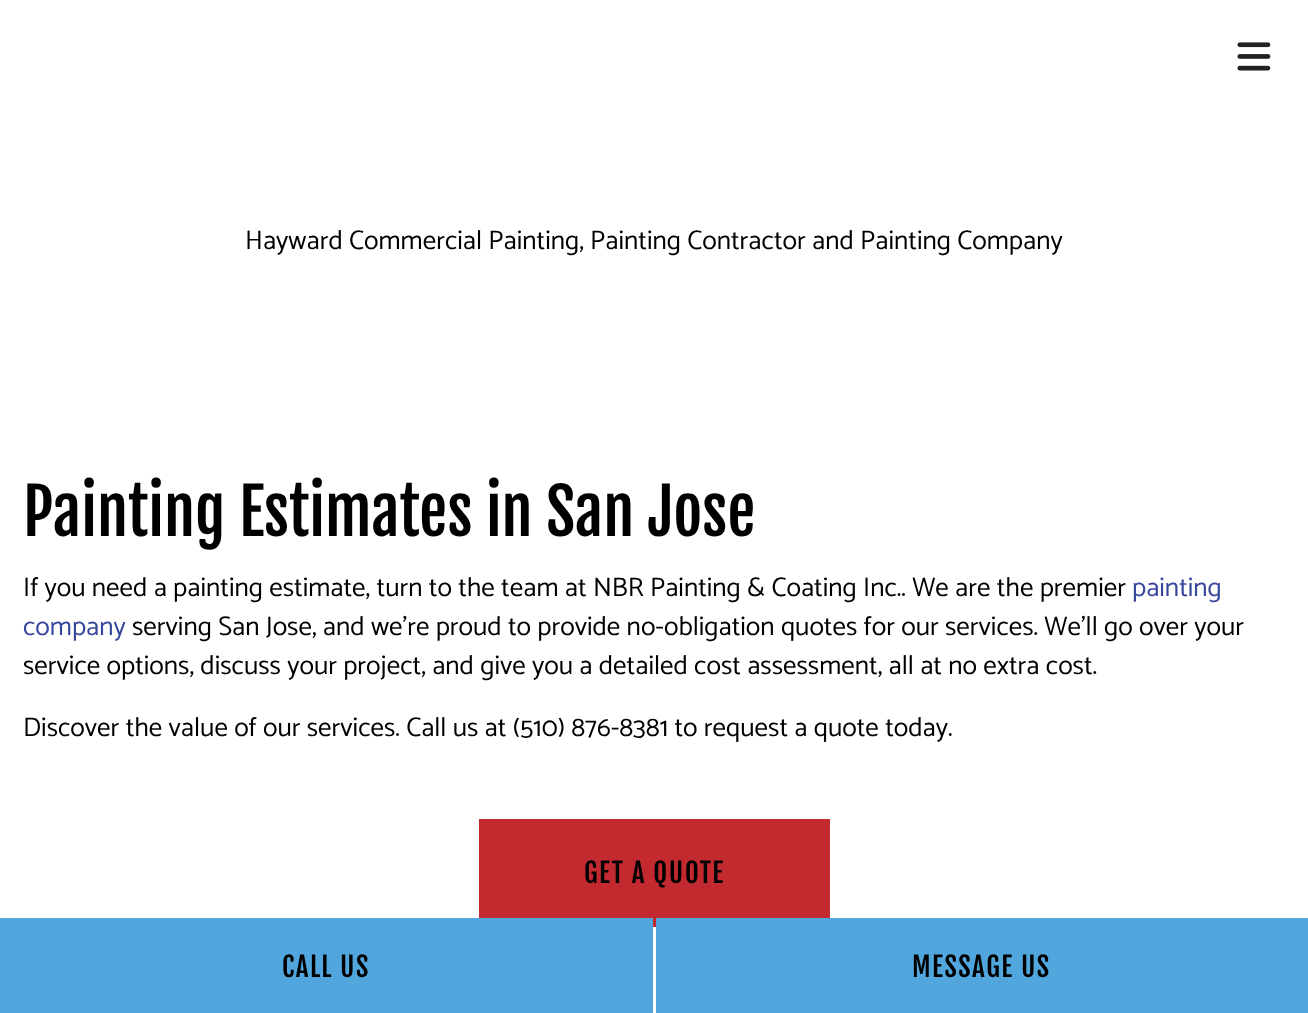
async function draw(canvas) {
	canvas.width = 1308;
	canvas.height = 1013;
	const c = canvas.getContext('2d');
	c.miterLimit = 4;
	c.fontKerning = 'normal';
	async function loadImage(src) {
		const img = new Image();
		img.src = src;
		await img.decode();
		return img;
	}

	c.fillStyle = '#fff';
	c.fillRect(0, 0, 1308, 1013);
	c.drawImage(await loadImage('img1.png'), 1237, 42, 34, 29);
	c.font = '100 27px Catamaran';
	c.fillStyle = '#000';
	c.fillText('Hayward Commercial Painting, Painting Contractor and Painting Company', 245, 249);
	c.font = '63px Fjalla One';
	c.fillText('Painting Estimates in San Jose', 23, 536);
	c.font = '100 27px Catamaran';
	c.fillText('If you need a painting estimate, turn to the team at NBR Painting & Coating Inc.. We are the premier', 23, 596);
	c.fillStyle = '#37469d';
	c.fillText('painting', 1132, 596);
	c.fillText('company', 23, 635);
	c.fillStyle = '#000';
	for (const [text, x, y] of [
		['serving San Jose, and we’re proud to provide no-obligation quotes for our services. We’ll go over your', 132, 635],
		['service options, discuss your project, and give you a detailed cost assessment, all at no extra cost.', 23, 674],
		['Discover the value of our services. Call us at (510) 876-8381 to request a quote today.', 23, 736],
	]) {
		c.fillText(text, x, y);
	}
	c.fillStyle = '#c22a2f';
	c.fillRect(479, 819, 351, 108);
	c.letterSpacing = '1.5px';
	c.font = '27px Fjalla One';
	c.fillStyle = '#000';
	c.fillText('GET A QUOTE', 584, 883);
	c.fillStyle = '#51a7dd';
	c.fillRect(0, 918, 653, 95);
	c.fillStyle = '#000';
	c.fillText('CALL US', 282, 977);
	c.fillStyle = '#51a7dd';
	c.fillRect(656, 918, 652, 95);
	c.fillStyle = '#000';
	c.fillText('MESSAGE US', 912, 977);
}

draw(document.querySelector('canvas'));
